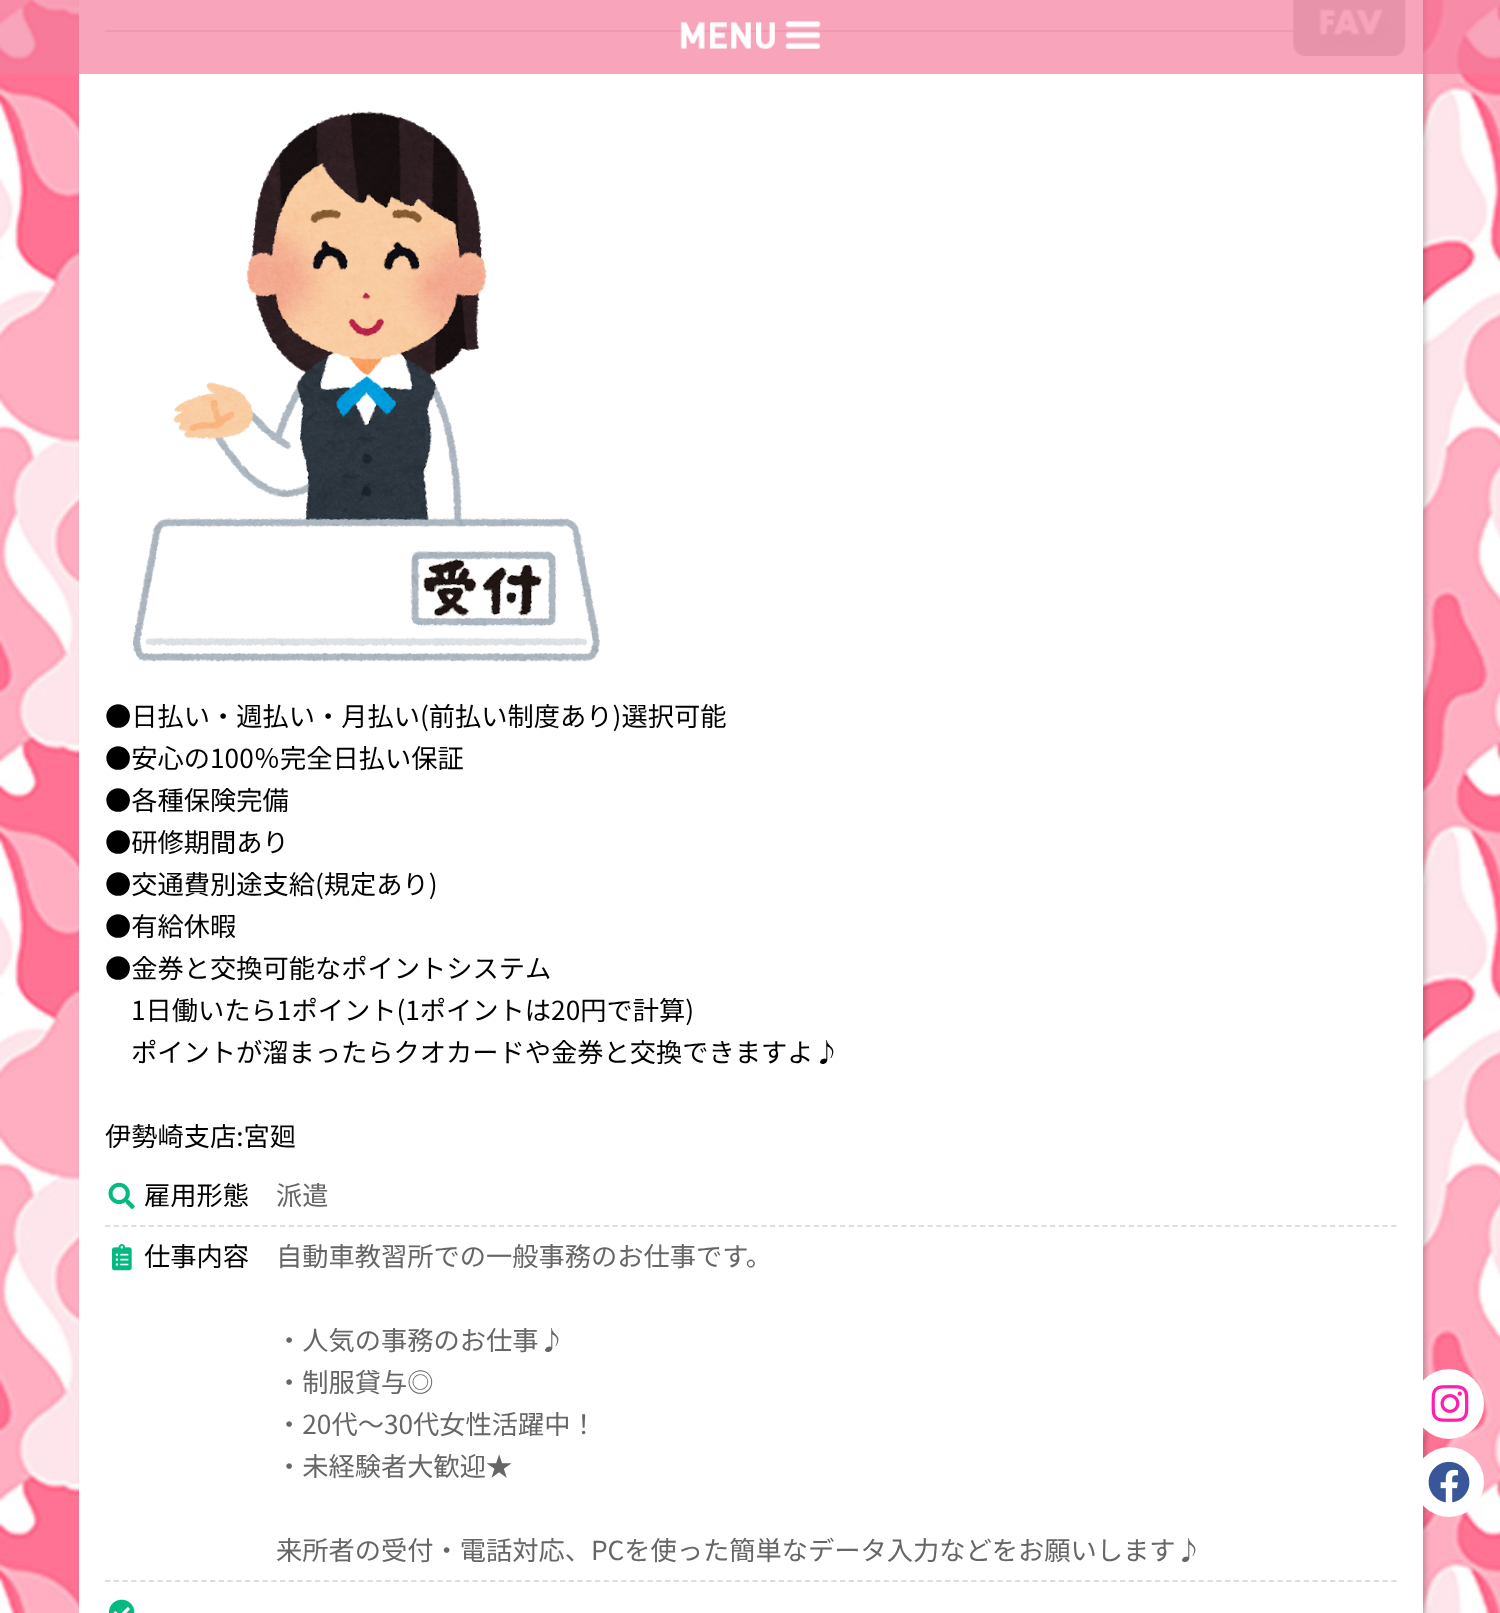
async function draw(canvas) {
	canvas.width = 1500;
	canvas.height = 1613;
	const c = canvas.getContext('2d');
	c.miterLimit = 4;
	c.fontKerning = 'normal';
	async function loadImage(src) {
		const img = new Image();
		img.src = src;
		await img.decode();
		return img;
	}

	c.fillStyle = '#fff';
	c.fillRect(0, 0, 1500, 1613);
	c.drawImage(await loadImage('img2.png'), 0, 0, 1500, 1613);
	c.fillStyle = '#00000033';
	c.filter = 'blur(2.5px)';
	c.beginPath();
	c.roundRect(82, -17, 1344, 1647, 9);
	c.fill();
	c.filter = 'none';
	c.fillStyle = '#fff';
	c.fillRect(79, 0, 1344, 1613);
	c.fillStyle = '#dedede';
	c.fillRect(105, 30, 1189, 2);
	c.drawImage(await loadImage('img3.png'), 1293, 0, 113, 56);
	c.fillStyle = '#f57d9cb3';
	c.fillRect(0, 0, 1500, 74);
	c.drawImage(await loadImage('img1.png'), 680, 21, 141, 28);
	c.drawImage(await loadImage('img4.png'), 133, 111, 467, 551);
	c.font = '26.25px Noto Sans JP';
	c.fillStyle = '#000';
	for (const [text, x, y] of [
		['●日払い・週払い・月払い(前払い制度あり)選択可能', 105, 726],
		['●安心の100％完全日払い保証', 105, 768],
		['●各種保険完備', 105, 810],
		['●研修期間あり', 105, 852],
		['●交通費別途支給(規定あり)', 105, 894],
		['●有給休暇', 105, 936],
		['●金券と交換可能なポイントシステム', 105, 978],
		['1日働いたら1ポイント(1ポイントは20円で計算)', 131, 1020],
		['ポイントが溜まったらクオカードや金券と交換できますよ♪', 131, 1062],
		['伊勢崎支店:宮廻', 105, 1146],
	]) {
		c.fillText(text, x, y);
	}
	c.drawImage(await loadImage('img5.png'), 108, 1182, 27, 27);
	c.fillText('雇用形態', 144, 1205);
	c.beginPath();
	c.moveTo(105, 1226);
	c.lineTo(1396.5, 1226);
	c.strokeStyle = '#dedede';
	c.lineWidth = 1.8;
	c.setLineDash([5.25, 3.5]);
	c.stroke();
	c.fillStyle = '#666';
	c.fillText('派遣', 276, 1205);
	c.drawImage(await loadImage('img6.png'), 112, 1244, 20, 27);
	c.fillStyle = '#000';
	c.fillText('仕事内容', 144, 1266);
	c.beginPath();
	c.moveTo(105, 1581);
	c.lineTo(1396.5, 1581);
	c.stroke();
	c.fillStyle = '#666';
	for (const [text, x, y] of [
		['自動車教習所での一般事務のお仕事です。', 276, 1266],
		['・人気の事務のお仕事♪', 276, 1350],
		['・制服貸与◎', 276, 1392],
		['・20代～30代女性活躍中！', 276, 1434],
		['・未経験者大歓迎★', 276, 1476],
		['来所者の受付・電話対応、PCを使った簡単なデータ入力などをお願いします♪', 276, 1560],
	]) {
		c.fillText(text, x, y);
	}
	c.drawImage(await loadImage('img7.png'), 108, 1599, 27, 14);
	c.fillStyle = '#fff';
	c.beginPath();
	c.arc(1449, 1404, 35, 0, 2 * Math.PI);
	c.fill();
	c.drawImage(await loadImage('img8.png'), 1431, 1385, 38, 37);
	c.beginPath();
	c.arc(1449, 1482, 35, 0, 2 * Math.PI);
	c.fill();
	c.drawImage(await loadImage('img9.png'), 1428, 1461, 42, 42);
}

draw(document.querySelector('canvas'));
